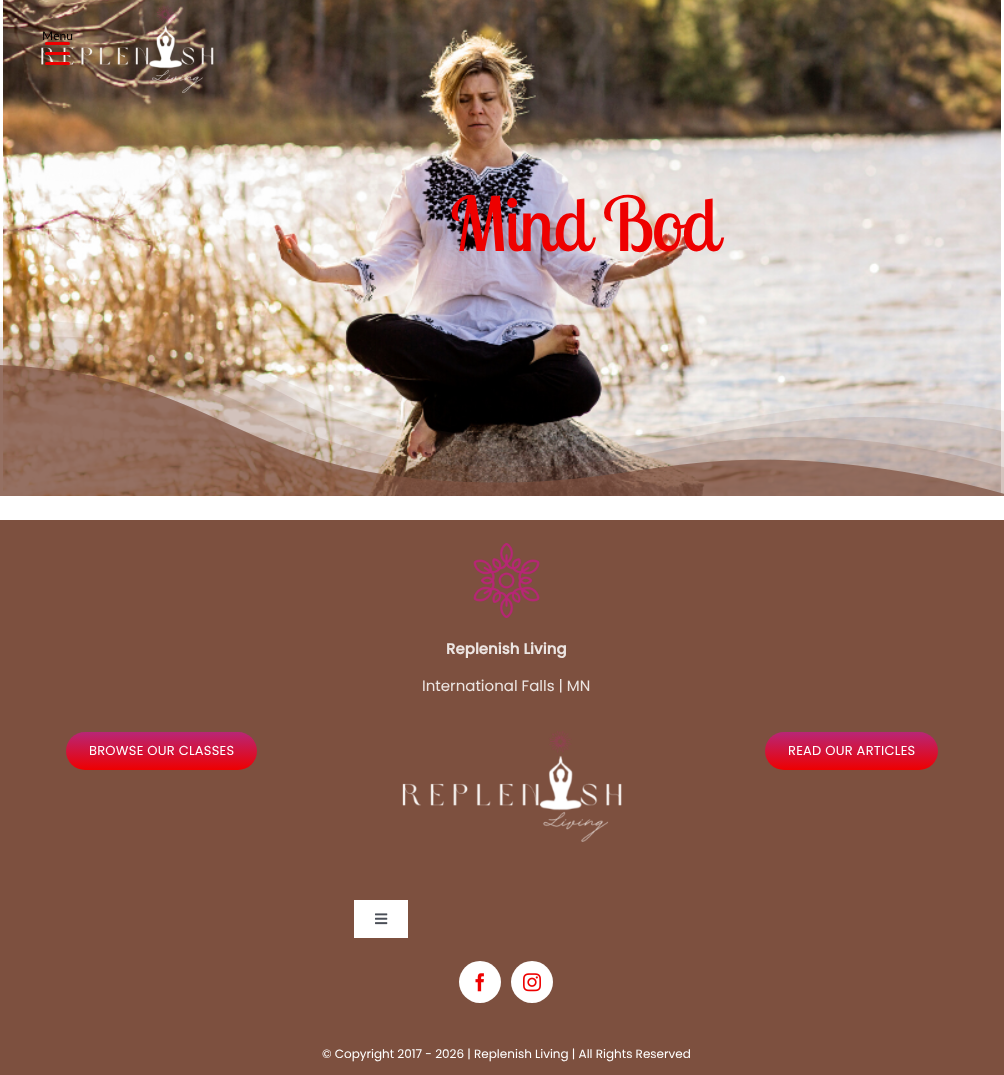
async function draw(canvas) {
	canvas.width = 1004;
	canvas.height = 1075;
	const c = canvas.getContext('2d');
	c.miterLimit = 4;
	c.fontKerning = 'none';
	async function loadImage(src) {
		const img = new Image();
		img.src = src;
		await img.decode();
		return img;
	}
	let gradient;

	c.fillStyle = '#fff';
	c.fillRect(0, 0, 1004, 1075);
	c.drawImage(await loadImage('img1.png'), 3, 0, 998, 496);
	c.drawImage(await loadImage('img2.png'), 41, 5, 173, 88);
	c.font = '12px Lato';
	c.fillStyle = '#000';
	c.fillText('Menu', 42, 40);
	c.fillStyle = '#e00';
	c.beginPath();
	c.roundRect(45, 52, 25, 3, 1.5);
	c.fill();
	c.beginPath();
	c.roundRect(45, 42, 25, 3, 1.5);
	c.fill();
	c.beginPath();
	c.roundRect(45, 62, 25, 3, 1.5);
	c.fill();
	c.letterSpacing = '-1.5px';
	c.font = '75px Lobster Two';
	c.fillText('Mind Bod', 450, 251);
	c.drawImage(await loadImage('img3.png'), 0, 321, 1004, 175);
	c.fillStyle = '#7d503f';
	c.fillRect(0, 520, 1004, 555);
	c.drawImage(await loadImage('img4.png'), 473, 543, 67, 75);
	c.letterSpacing = '0px';
	c.font = 'bold 15px Poppins';
	c.fillStyle = '#ece5e2';
	c.fillText('Replenish Living', 446, 654);
	c.font = '15px Poppins';
	c.fillText('International Falls | MN', 422, 691);
	c.drawImage(await loadImage('img5.png'), 402, 731, 220, 111);
	c.fillStyle = '#fff';
	c.fillRect(354, 900, 54, 38);
	c.drawImage(await loadImage('img6.png'), 375, 913, 13, 12);
	c.beginPath();
	c.arc(480, 982, 21, 0, 2 * Math.PI);
	c.fill();
	c.drawImage(await loadImage('img7.png'), 475, 973, 9, 19);
	c.beginPath();
	c.arc(532, 982, 21, 0, 2 * Math.PI);
	c.fill();
	c.drawImage(await loadImage('img8.png'), 523, 973, 18, 19);
	gradient = c.createLinearGradient(162, 732, 162, 770);
	gradient.addColorStop(0, '#b82677');
	gradient.addColorStop(1, '#e00');
	c.fillStyle = gradient;
	c.beginPath();
	c.roundRect(66, 732, 191, 38, 19);
	c.fill();
	c.letterSpacing = '0.25px';
	c.font = '13px Poppins';
	c.fillStyle = '#fff';
	c.fillText('BROWSE OUR CLASSES', 89, 755);
	gradient = c.createLinearGradient(852, 732, 852, 770);
	gradient.addColorStop(0, '#b82677');
	gradient.addColorStop(1, '#e00');
	c.fillStyle = gradient;
	c.beginPath();
	c.roundRect(765, 732, 173, 38, 19);
	c.fill();
	c.fillStyle = '#fff';
	c.fillText('READ OUR ARTICLES', 788, 755);
	c.letterSpacing = '0px';
	c.font = '12px Poppins';
	c.fillText('© Copyright 2017 - 2026 | Replenish Living | All Rights Reserved', 322, 1058);
}

draw(document.querySelector('canvas'));
